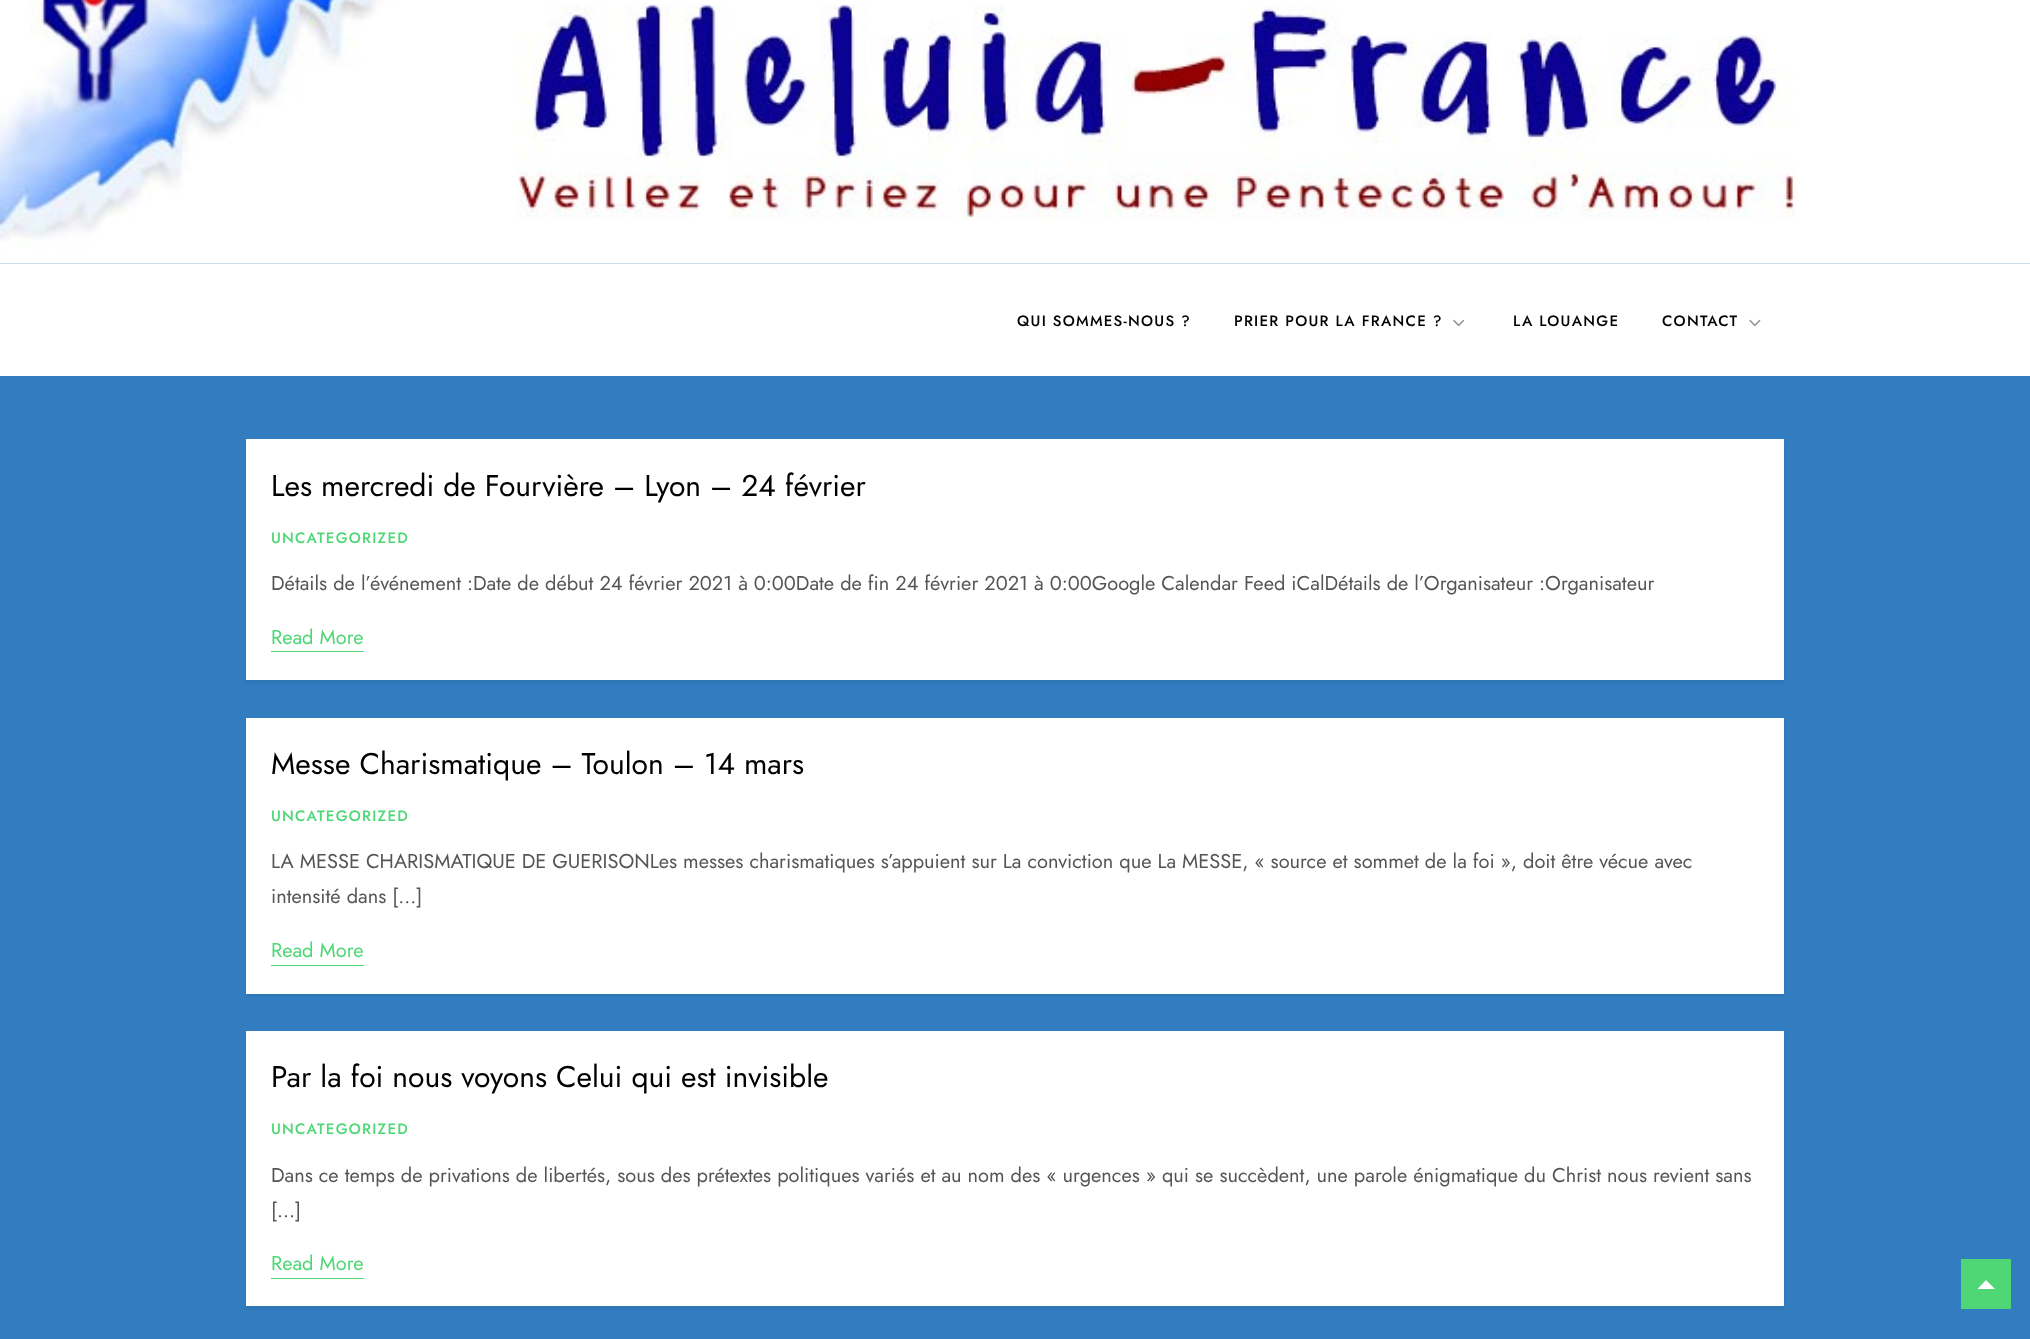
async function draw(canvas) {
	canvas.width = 2030;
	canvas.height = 1339;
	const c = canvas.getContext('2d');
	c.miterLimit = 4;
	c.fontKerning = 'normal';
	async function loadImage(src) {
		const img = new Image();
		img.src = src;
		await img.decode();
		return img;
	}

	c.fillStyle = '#317dbf';
	c.fillRect(0, 0, 2030, 1339);
	c.drawImage(await loadImage('img1.png'), 0, 0, 2030, 264);
	c.fillStyle = '#fff';
	c.fillRect(0, 264, 2030, 112);
	c.letterSpacing = '1.25px';
	c.font = '500 15px Jost';
	c.fillStyle = '#000';
	c.fillText('QUI SOMMES-NOUS ?', 1017, 326);
	c.fillText('PRIER POUR LA FRANCE ?', 1234, 326);
	c.drawImage(await loadImage('img2.png'), 1453, 319, 12, 8);
	c.fillText('LA LOUANGE', 1513, 326);
	c.fillText('CONTACT', 1662, 326);
	c.drawImage(await loadImage('img3.png'), 1749, 319, 12, 8);
	c.fillStyle = '#0000000f';
	c.filter = 'blur(1px)';
	c.beginPath();
	c.rect(246, 441, 1538, 242);
	c.fill();
	c.filter = 'none';
	c.fillStyle = '#fff';
	c.fillRect(246, 439, 1538, 241);
	c.letterSpacing = '0px';
	c.font = '30px Jost';
	c.fillStyle = '#000';
	c.fillText('Les mercredi de Fourvière – Lyon – 24 février', 271, 496);
	c.letterSpacing = '1.25px';
	c.font = '500 15px Jost';
	c.fillStyle = '#4fd675';
	c.fillText('UNCATEGORIZED', 271, 543);
	c.letterSpacing = '0px';
	c.font = '20px Jost';
	c.fillStyle = '#555';
	c.fillText('Détails de l’événement :Date de début 24 février 2021 à 0:00Date de fin 24 février 2021 à 0:00Google Calendar Feed iCalDétails de l’Organisateur :Organisateur', 271, 590);
	c.fillStyle = '#4fd675';
	c.fillText('Read More', 271, 644);
	c.fillRect(271, 651, 93, 1);
	c.fillStyle = '#0000000f';
	c.filter = 'blur(1px)';
	c.beginPath();
	c.rect(246, 720, 1538, 276);
	c.fill();
	c.filter = 'none';
	c.fillStyle = '#fff';
	c.fillRect(246, 718, 1538, 276);
	c.font = '30px Jost';
	c.fillStyle = '#000';
	c.fillText('Messe Charismatique – Toulon – 14 mars', 271, 774);
	c.letterSpacing = '1.25px';
	c.font = '500 15px Jost';
	c.fillStyle = '#4fd675';
	c.fillText('UNCATEGORIZED', 271, 821);
	c.letterSpacing = '0px';
	c.font = '20px Jost';
	c.fillStyle = '#555';
	c.fillText('LA MESSE CHARISMATIQUE DE GUERISONLes messes charismatiques s’appuient sur La conviction que La MESSE, « source et sommet de la foi », doit être vécue avec', 271, 868);
	c.fillText('intensité dans […]', 271, 903);
	c.fillStyle = '#4fd675';
	c.fillText('Read More', 271, 957);
	c.fillRect(271, 965, 93, 1);
	c.fillStyle = '#0000000f';
	c.filter = 'blur(1px)';
	c.beginPath();
	c.rect(246, 1034, 1538, 275);
	c.fill();
	c.filter = 'none';
	c.fillStyle = '#fff';
	c.fillRect(246, 1031, 1538, 275);
	c.font = '30px Jost';
	c.fillStyle = '#000';
	c.fillText('Par la foi nous voyons Celui qui est invisible', 271, 1087);
	c.letterSpacing = '1.25px';
	c.font = '500 15px Jost';
	c.fillStyle = '#4fd675';
	c.fillText('UNCATEGORIZED', 271, 1134);
	c.letterSpacing = '0px';
	c.font = '20px Jost';
	c.fillStyle = '#555';
	c.fillText('Dans ce temps de privations de libertés, sous des prétextes politiques variés et au nom des « urgences » qui se succèdent, une parole énigmatique du Christ nous revient sans', 271, 1182);
	c.fillText('[…]', 271, 1217);
	c.fillStyle = '#4fd675';
	c.fillText('Read More', 271, 1270);
	c.fillRect(271, 1278, 93, 1);
	c.fillRect(1961, 1259, 50, 50);
	c.fillStyle = '#fff';
	c.beginPath();
	c.moveTo(1995, 1289);
	c.lineTo(1977.5, 1289);
	c.lineTo(1986, 1280);
	c.closePath();
	c.fill();
}

draw(document.querySelector('canvas'));
